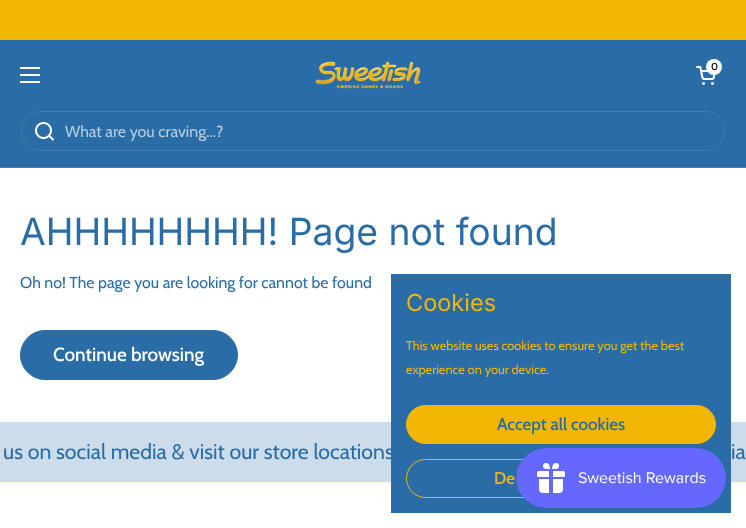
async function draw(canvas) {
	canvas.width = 746;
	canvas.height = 528;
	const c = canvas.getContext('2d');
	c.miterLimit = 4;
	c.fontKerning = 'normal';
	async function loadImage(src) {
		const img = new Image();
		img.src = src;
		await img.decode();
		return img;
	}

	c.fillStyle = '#fff';
	c.fillRect(0, 0, 746, 528);
	for (const [x, y, w, h, color] of [
		[0, 0, 746, 40, '#f2b705'],
		[0, 40, 746, 127, '#296ca6'],
		[20, 67, 20, 2, '#fff'],
		[20, 74, 20, 2, '#fff'],
		[20, 81, 20, 2, '#fff'],
	]) {
		c.fillStyle = color;
		c.fillRect(x, y, w, h);
	}
	c.drawImage(await loadImage('img1.png'), 315, 61, 106, 28);
	c.drawImage(await loadImage('img2.png'), 696, 66, 20, 19);
	c.beginPath();
	c.arc(714, 67, 8, 0, 2 * Math.PI);
	c.fill();
	c.font = '500 10px Cabin';
	c.fillStyle = '#000';
	c.fillText('0', 711, 70);
	c.fillStyle = '#3e7baf';
	c.fillRect(0, 167, 746, 1);
	c.beginPath();
	c.roundRect(21.5, 111.5, 703, 39, 19.5);
	c.strokeStyle = '#3e7baf';
	c.stroke();
	c.drawImage(await loadImage('img3.png'), 35, 122, 19, 19);
	c.font = '16px Cabin';
	c.fillStyle = '#b6cde1';
	c.fillText('What are you craving...?', 65, 137);
	c.font = '37.3px Inter';
	c.fillStyle = '#296ca6';
	c.fillText('AHHHHHHHH! Page not found', 20, 245);
	c.font = '15.9px Cabin';
	c.fillText('Oh no! The page you are looking for cannot be found', 20, 288);
	c.beginPath();
	c.roundRect(20.5, 330.5, 217, 49, 24.5);
	c.fill();
	c.strokeStyle = '#296ca6';
	c.stroke();
	c.font = '500 19px Cabin';
	c.fillStyle = '#fff';
	c.fillText('Continue browsing', 53, 361);
	for (const [x, y, w, h, color] of [
		[0, 422, 746, 60, '#ccdcea'],
		[0, 482, 746, 1, '#fdf4da'],
		[391, 274, 340, 239, '#296ca6'],
	]) {
		c.fillStyle = color;
		c.fillRect(x, y, w, h);
	}
	c.font = '23.5px Inter';
	c.fillStyle = '#f2b705';
	c.fillText('Cookies', 406, 311);
	c.font = '12.75px Cabin';
	c.fillText('This website uses cookies to ensure you get the best', 406, 350);
	c.fillText('experience on your device.', 406, 374);
	c.beginPath();
	c.roundRect(406.5, 405.5, 309, 38, 19);
	c.fill();
	c.strokeStyle = '#f2b705';
	c.stroke();
	c.font = '500 17px Cabin';
	c.fillStyle = '#296ca6';
	c.fillText('Accept all cookies', 497, 430);
	c.beginPath();
	c.roundRect(406.5, 459.5, 309, 38, 19);
	c.stroke();
	c.fillStyle = '#f2b705';
	c.fillText('De', 494, 484);
	c.font = '21.25px Cabin';
	c.fillStyle = '#296ca6';
	c.fillText('us on social media & visit our store locations', 3, 459);
	c.fillText('ia', 731, 459);
	c.drawImage(await loadImage('img4.png'), 516, 448, 210, 60);
}

draw(document.querySelector('canvas'));
